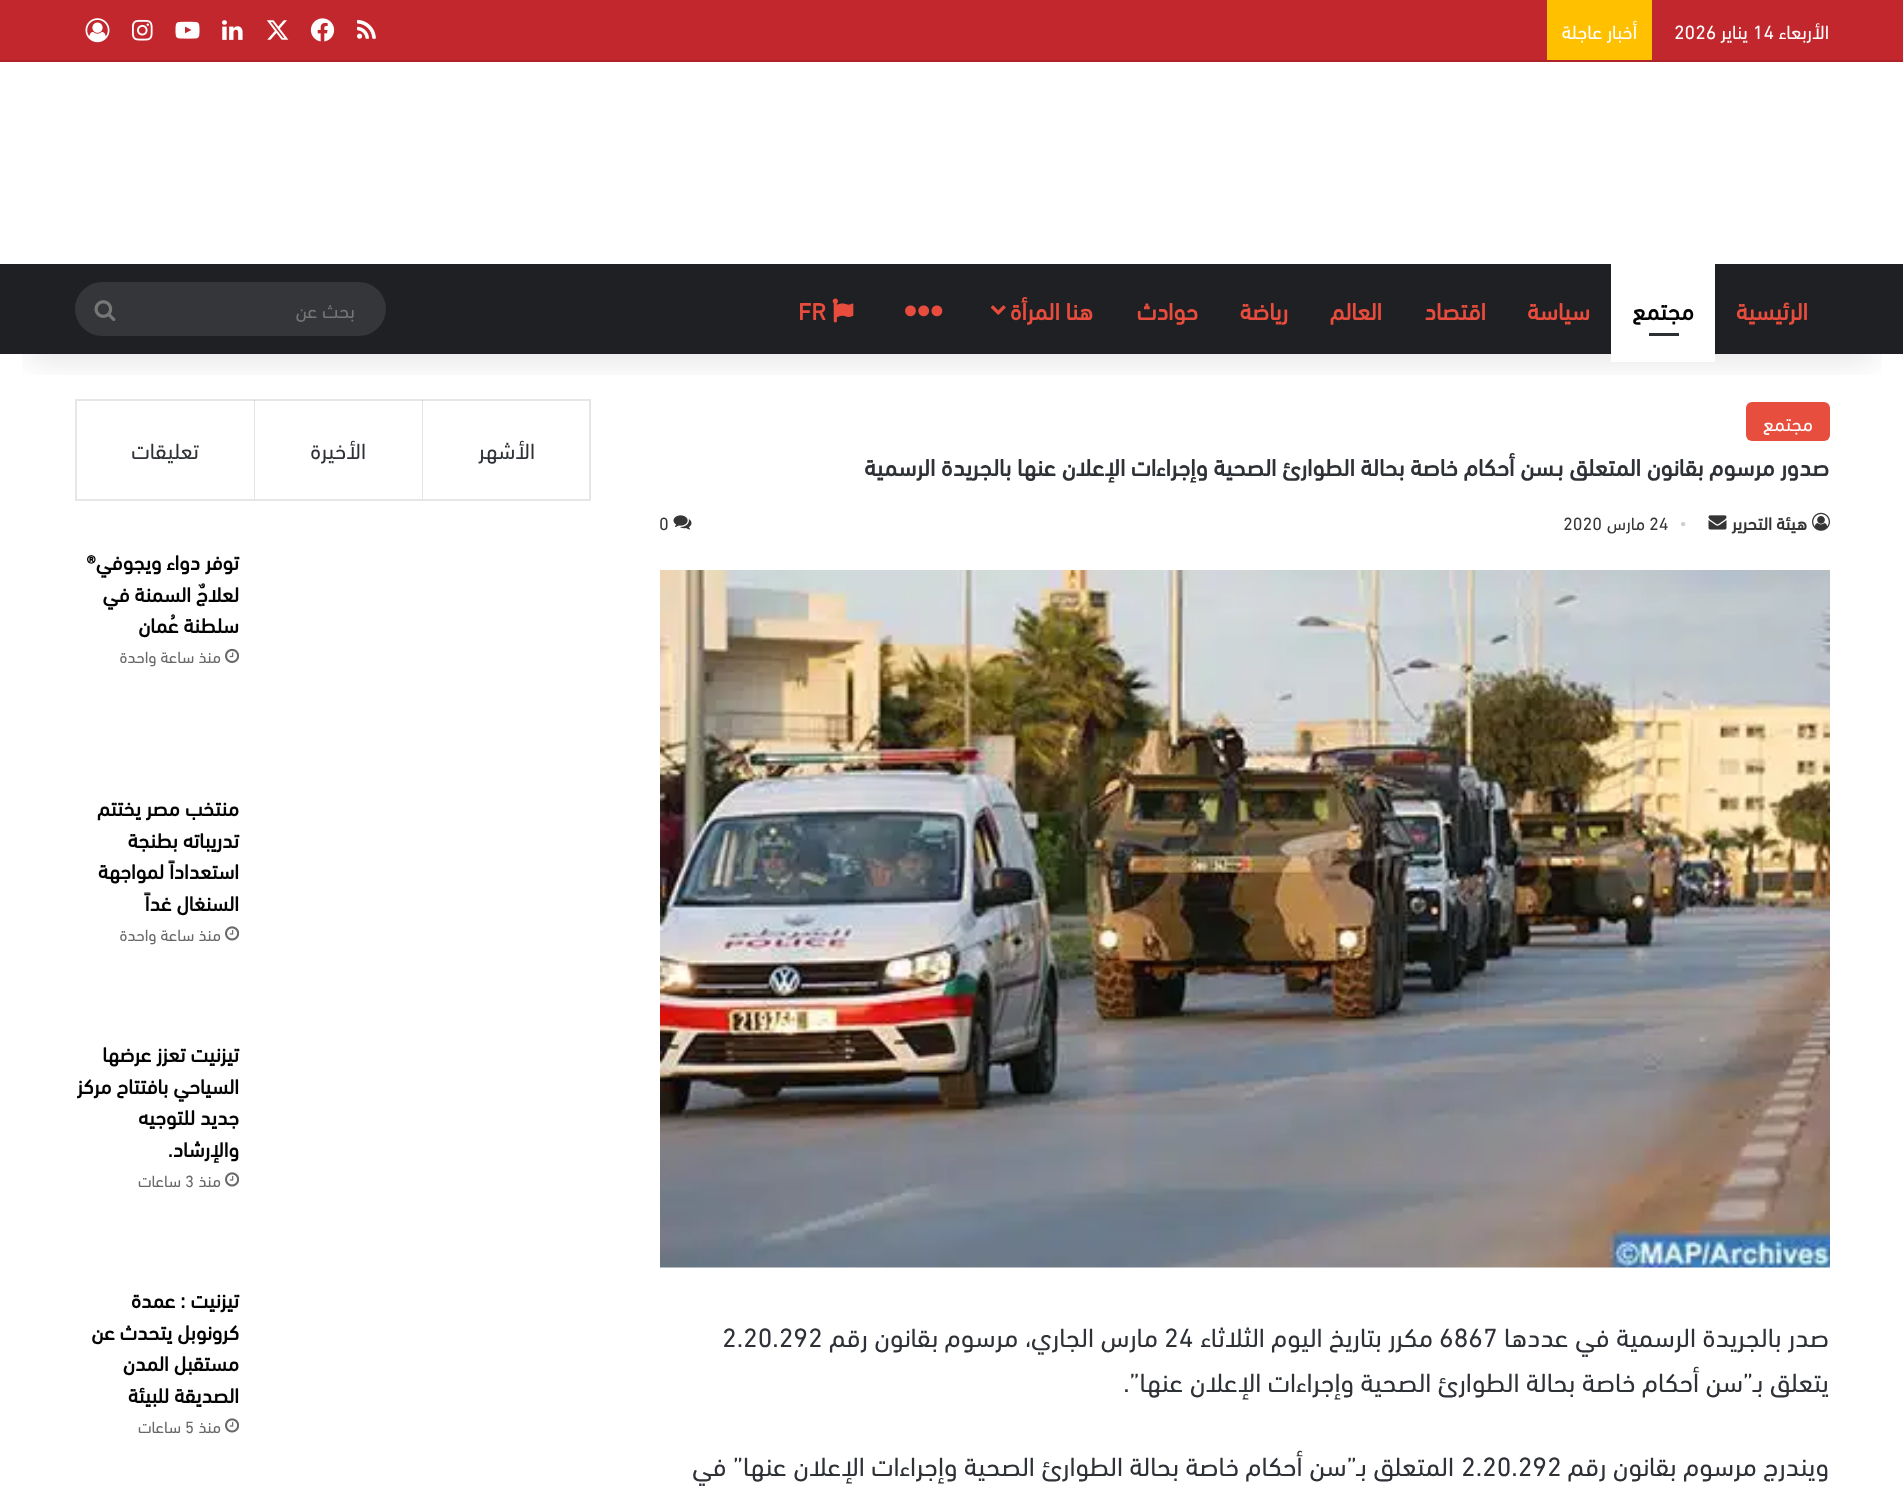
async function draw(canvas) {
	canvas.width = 1903;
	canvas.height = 1493;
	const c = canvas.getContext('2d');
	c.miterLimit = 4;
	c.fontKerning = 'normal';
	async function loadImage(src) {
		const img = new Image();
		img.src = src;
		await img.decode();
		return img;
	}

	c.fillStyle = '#fff';
	c.fillRect(0, 0, 1903, 1493);
	c.fillStyle = '#e74e3e';
	c.beginPath();
	c.roundRect(1746, 402, 84, 39, 6);
	c.fill();
	c.strokeStyle = '#e6e6e6';
	c.lineWidth = 2;
	c.strokeRect(76, 400, 514, 100);
	c.fillStyle = '#0303031a';
	c.beginPath();
	c.moveTo(422, 500);
	c.lineTo(422, 400);
	c.lineTo(423, 400);
	c.lineTo(423, 498);
	c.closePath();
	c.fill();
	c.beginPath();
	c.moveTo(254, 500);
	c.lineTo(254, 400);
	c.lineTo(255, 400);
	c.lineTo(255, 498);
	c.closePath();
	c.fill();
	c.save();
	c.beginPath();
	c.rect(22, 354, 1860, 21);
	c.clip();
	c.fillStyle = '#0000001a';
	c.filter = 'blur(15px)';
	c.beginPath();
	c.rect(30, 68, 1844, 294);
	c.fill();
	c.filter = 'none';
	c.restore();
	c.fillStyle = '#c1272d';
	c.fillRect(0, 0, 1903, 60);
	c.fillStyle = '#ae2329';
	c.fillRect(0, 60, 1903, 2);
	c.direction = 'rtl';
	c.font = '19.5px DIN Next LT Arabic';
	c.fillStyle = '#fff';
	c.fillText('الأربعاء', 1829, 39);
	c.direction = 'ltr';
	c.fillText('14', 1753, 39);
	c.direction = 'rtl';
	c.fillText('يناير', 1748, 39);
	c.direction = 'ltr';
	c.fillText('2026', 1674, 39);
	c.fillStyle = '#ffc000';
	c.fillRect(1547, 0, 105, 60);
	c.direction = 'rtl';
	c.fillStyle = '#fff';
	c.fillText('أخبار عاجلة', 1637, 39);
	c.drawImage(await loadImage('img1.png'), 357, 19, 19, 20);
	c.drawImage(await loadImage('img2.png'), 310, 18, 25, 24);
	c.drawImage(await loadImage('img3.png'), 266, 20, 23, 20);
	c.drawImage(await loadImage('img4.png'), 222, 20, 21, 20);
	c.drawImage(await loadImage('img5.png'), 175, 21, 25, 18);
	c.drawImage(await loadImage('img6.png'), 132, 19, 21, 22);
	c.drawImage(await loadImage('img7.png'), 85, 18, 25, 25);
	c.fillStyle = '#1f2024';
	c.fillRect(0, 264, 1903, 90);
	c.font = 'bold 24px DIN Next LT Arabic';
	c.fillStyle = '#e74c3c';
	c.fillText('الرئيسية', 1808, 320);
	c.fillStyle = '#fff';
	c.fillRect(1611, 264, 104, 98);
	c.fillStyle = '#030303';
	c.fillText('مجتمع', 1694, 320);
	c.fillStyle = '#2c2f34';
	c.fillRect(1649, 333, 30, 3);
	c.fillStyle = '#e74c3c';
	for (const [text, x, y] of [
		['سياسة', 1590, 320],
		['اقتصاد', 1486, 320],
		['العالم', 1382, 320],
		['رياضة', 1288, 320],
		['حوادث', 1198, 320],
		['هنا المرأة', 1093, 320],
	]) {
		c.fillText(text, x, y);
	}
	c.drawImage(await loadImage('img8.png'), 990, 305, 16, 10);
	c.drawImage(await loadImage('img9.png'), 905, 305, 38, 12);
	c.drawImage(await loadImage('img10.png'), 832, 298, 22, 25);
	c.direction = 'ltr';
	c.fillText('FR', 798, 320);
	c.fillStyle = '#35363a';
	c.beginPath();
	c.roundRect(75, 282, 311, 54, 27);
	c.fill();
	c.direction = 'rtl';
	c.font = '19.5px DIN Next LT Arabic';
	c.fillStyle = '#757575';
	c.fillText('بحث عن', 355, 318);
	c.drawImage(await loadImage('img11.png'), 94, 300, 22, 21);
	c.fillStyle = '#fff';
	c.fillText('مجتمع', 1813, 431);
	c.font = 'bold 24px DIN Next LT Arabic';
	c.fillStyle = '#2e3136';
	c.fillText('صدور مرسوم بقانون المتعلق بـسن أحكام خاصة بحالة الطوارئ الصحية وإجراءات الإعلان عنها بالجريدة الرسمية', 1829, 476);
	c.drawImage(await loadImage('img12.png'), 1812, 512, 18, 19);
	c.font = 'bold 18px DIN Next LT Arabic';
	c.fillStyle = '#353535';
	c.fillText('هيئة التحرير', 1807, 530);
	c.drawImage(await loadImage('img13.png'), 1708, 515, 19, 15);
	c.direction = 'ltr';
	c.font = '18px Liberation Serif';
	c.fillStyle = '#cdcdcd';
	c.fillText('•', 1680, 530);
	c.font = '18px DIN Next LT Arabic';
	c.fillStyle = '#353535';
	c.fillText('24', 1649, 530);
	c.direction = 'rtl';
	c.fillText('مارس', 1645, 530);
	c.direction = 'ltr';
	c.fillText('2020', 1563, 530);
	c.drawImage(await loadImage('img14.png'), 673, 515, 19, 15);
	c.fillText('0', 659, 530);
	c.drawImage(await loadImage('img15.png'), 660, 570, 1170, 698);
	c.direction = 'rtl';
	c.font = '27px DIN Next LT Arabic';
	c.fillStyle = '#2e3136';
	c.fillText('صدر بالجريدة الرسمية في عددها', 1829, 1347);
	c.direction = 'ltr';
	c.fillText('6867', 1439, 1347);
	c.direction = 'rtl';
	c.fillText('مكرر بتاريخ اليوم الثلاثاء', 1433, 1347);
	c.direction = 'ltr';
	c.fillText('24', 1164, 1347);
	c.direction = 'rtl';
	c.fillText('مارس الجاري، مرسوم بقانون رقم', 1158, 1347);
	c.direction = 'ltr';
	c.fillText('2.20.292', 722, 1347);
	c.direction = 'rtl';
	c.fillText('يتعلق بـ”سن أحكام خاصة بحالة الطوارئ الصحية وإجراءات الإعلان عنها”.', 1829, 1392);
	c.fillText('ويندرج مرسوم بقانون رقم', 1829, 1476);
	c.direction = 'ltr';
	c.fillText('2.20.292', 1461, 1476);
	c.direction = 'rtl';
	c.fillText('المتعلق بـ”سن أحكام خاصة بحالة الطوارئ الصحية وإجراءات الإعلان عنها” في', 1454, 1476);
	c.font = '22.5px DIN Next LT Arabic';
	for (const [text, x, y] of [
		['الأشهر', 535, 459],
		['الأخيرة', 366, 459],
		['تعليقات', 199, 459],
	]) {
		c.fillText(text, x, y);
	}
	c.font = 'bold 21px DIN Next LT Arabic';
	c.fillStyle = '#030303';
	for (const [text, x, y] of [
		['توفر دواء ويجوفي®', 239, 570],
		['لعلاجٌ السمنة في', 239, 602],
		['سلطنة عُمان', 239, 633],
	]) {
		c.fillText(text, x, y);
	}
	c.drawImage(await loadImage('img16.png'), 225, 648, 14, 15);
	c.font = '16.5px DIN Next LT Arabic';
	c.fillStyle = '#686868';
	c.fillText('منذ ساعة واحدة', 221, 663);
	c.font = 'bold 21px DIN Next LT Arabic';
	c.fillStyle = '#030303';
	for (const [text, x, y] of [
		['منتخب مصر يختتم', 239, 816],
		['تدريباته بطنجة', 239, 848],
		['استعداداً لمواجهة', 239, 879],
		['السنغال غداً', 239, 911],
	]) {
		c.fillText(text, x, y);
	}
	c.drawImage(await loadImage('img17.png'), 225, 926, 14, 15);
	c.font = '16.5px DIN Next LT Arabic';
	c.fillStyle = '#686868';
	c.fillText('منذ ساعة واحدة', 221, 941);
	c.font = 'bold 21px DIN Next LT Arabic';
	c.fillStyle = '#030303';
	for (const [text, x, y] of [
		['تيزنيت تعزز عرضها', 239, 1062],
		['السياحي بافتتاح مركز', 239, 1094],
		['جديد للتوجيه', 239, 1125],
		['والإرشاد.', 239, 1157],
	]) {
		c.fillText(text, x, y);
	}
	c.drawImage(await loadImage('img17.png'), 225, 1172, 14, 15);
	c.font = '16.5px DIN Next LT Arabic';
	c.fillStyle = '#686868';
	c.fillText('منذ', 221, 1187);
	c.direction = 'ltr';
	c.fillText('3', 185, 1187);
	c.direction = 'rtl';
	c.fillText('ساعات', 181, 1187);
	c.font = 'bold 21px DIN Next LT Arabic';
	c.fillStyle = '#030303';
	for (const [text, x, y] of [
		['تيزنيت : عمدة', 239, 1308],
		['كرونوبل يتحدث عن', 239, 1340],
		['مستقبل المدن', 239, 1371],
		['الصديقة للبيئة', 239, 1403],
	]) {
		c.fillText(text, x, y);
	}
	c.drawImage(await loadImage('img17.png'), 225, 1418, 14, 15);
	c.font = '16.5px DIN Next LT Arabic';
	c.fillStyle = '#686868';
	c.fillText('منذ', 221, 1433);
	c.direction = 'ltr';
	c.fillText('5', 185, 1433);
	c.direction = 'rtl';
	c.fillText('ساعات', 181, 1433);
}

draw(document.querySelector('canvas'));
